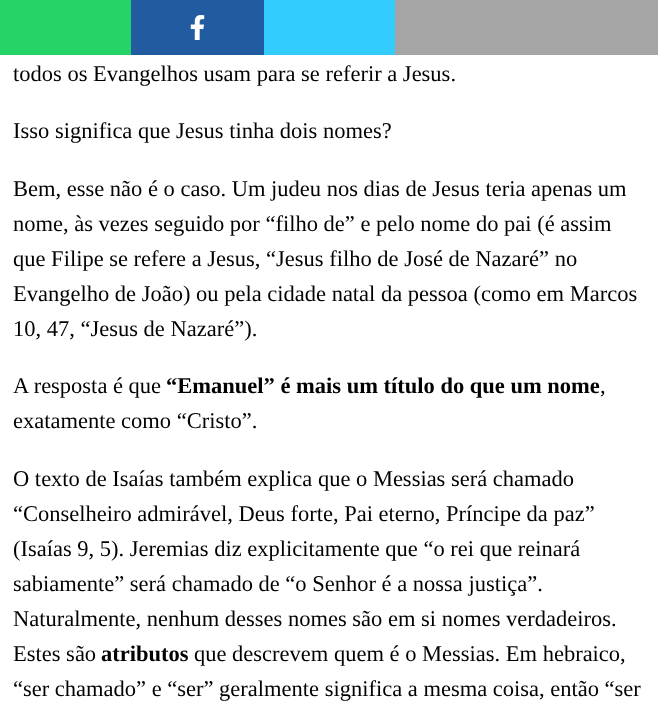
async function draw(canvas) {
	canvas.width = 658;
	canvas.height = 711;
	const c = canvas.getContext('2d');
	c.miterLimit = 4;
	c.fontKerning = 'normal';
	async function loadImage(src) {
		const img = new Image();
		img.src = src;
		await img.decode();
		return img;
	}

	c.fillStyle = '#fff';
	c.fillRect(0, 0, 658, 711);
	c.fillStyle = '#25d366';
	c.fillRect(0, 0, 131, 55);
	c.fillStyle = '#225ca0';
	c.fillRect(131, 0, 133, 55);
	c.drawImage(await loadImage('img1.png'), 190, 15, 15, 25);
	c.fillStyle = '#3cf';
	c.fillRect(264, 0, 131, 55);
	c.fillStyle = '#a5a5a5';
	c.fillRect(395, 0, 263, 55);
	c.font = '22.5px Liberation Serif';
	c.fillStyle = '#000';
	for (const [text, x, y] of [
		['todos os Evangelhos usam para se referir a Jesus.', 13, 81],
		['Isso significa que Jesus tinha dois nomes?', 13, 138],
		['Bem, esse não é o caso. Um judeu nos dias de Jesus teria apenas um', 13, 196],
		['nome, às vezes seguido por “filho de” e pelo nome do pai (é assim', 13, 231],
		['que Filipe se refere a Jesus, “Jesus filho de José de Nazaré” no', 13, 266],
		['Evangelho de João) ou pela cidade natal da pessoa (como em Marcos', 13, 301],
		['10, 47, “Jesus de Nazaré”).', 13, 336],
		['A resposta é que', 13, 393],
	]) {
		c.fillText(text, x, y);
	}
	c.font = 'bold 22.5px Liberation Serif';
	c.fillText('“Emanuel” é mais um título do que um nome', 166, 393);
	c.font = '22.5px Liberation Serif';
	for (const [text, x, y] of [
		[',', 600, 393],
		['exatamente como “Cristo”.', 13, 428],
		['O texto de Isaías também explica que o Messias será chamado', 13, 486],
		['“Conselheiro admirável, Deus forte, Pai eterno, Príncipe da paz”', 13, 521],
		['(Isaías 9, 5). Jeremias diz explicitamente que “o rei que reinará', 13, 556],
		['sabiamente” será chamado de “o Senhor é a nossa justiça”.', 13, 591],
		['Naturalmente, nenhum desses nomes são em si nomes verdadeiros.', 13, 626],
		['Estes são', 13, 661],
	]) {
		c.fillText(text, x, y);
	}
	c.font = 'bold 22.5px Liberation Serif';
	c.fillText('atributos', 101, 661);
	c.font = '22.5px Liberation Serif';
	c.fillText('que descrevem quem é o Messias. Em hebraico,', 194, 661);
	c.fillText('“ser chamado” e “ser” geralmente significa a mesma coisa, então “ser', 13, 696);
}

draw(document.querySelector('canvas'));
